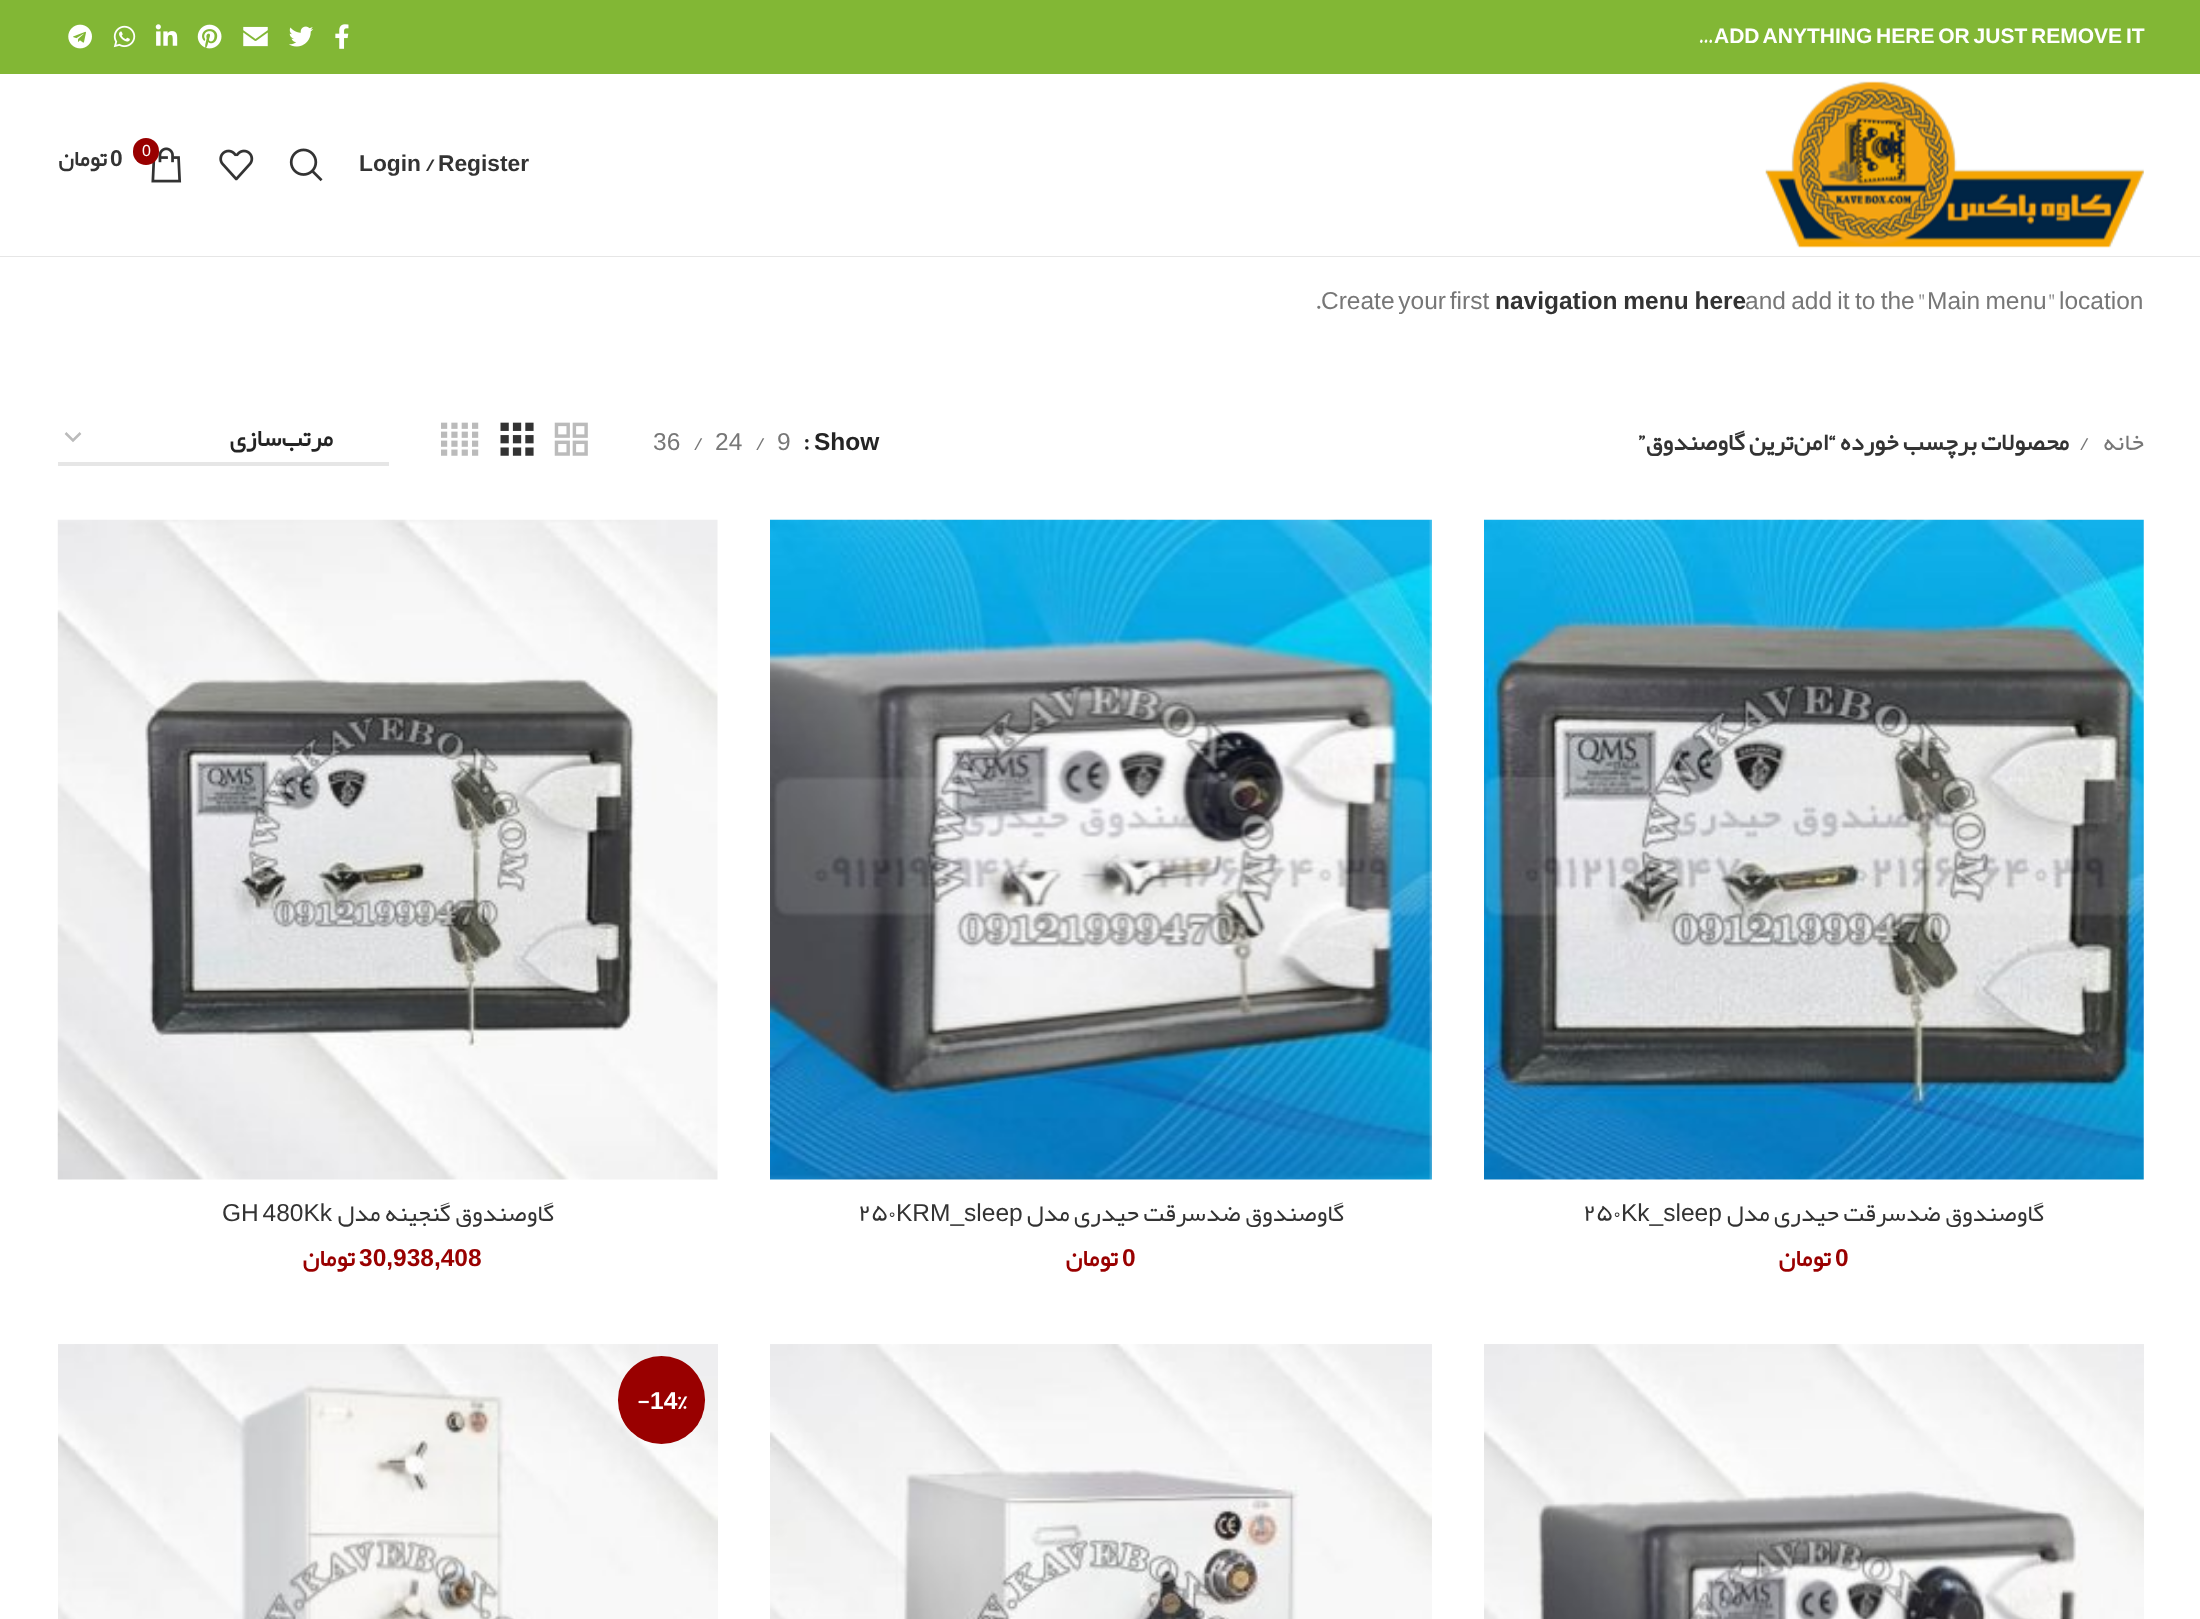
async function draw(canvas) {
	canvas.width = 2200;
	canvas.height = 1619;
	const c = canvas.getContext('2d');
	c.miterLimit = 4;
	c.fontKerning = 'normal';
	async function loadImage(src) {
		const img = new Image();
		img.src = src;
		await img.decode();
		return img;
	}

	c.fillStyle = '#fff';
	c.fillRect(0, 0, 2200, 1619);
	c.fillStyle = '#82b735';
	c.fillRect(0, 0, 2200, 74);
	c.drawImage(await loadImage('img1.png'), 68, 24, 24, 25);
	c.drawImage(await loadImage('img2.png'), 113, 25, 23, 23);
	c.drawImage(await loadImage('img3.png'), 155, 24, 23, 22);
	c.drawImage(await loadImage('img4.png'), 197, 24, 25, 25);
	c.drawImage(await loadImage('img5.png'), 243, 26, 25, 21);
	c.drawImage(await loadImage('img6.png'), 289, 26, 25, 21);
	c.drawImage(await loadImage('img7.png'), 335, 24, 14, 25);
	c.font = 'bold 21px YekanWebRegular';
	c.fillStyle = '#fff';
	c.fillText('…', 1698, 43);
	c.wordSpacing = '-2px';
	c.font = 'bold 21px Liberation Sans';
	c.fillText('ADD ANYTHING HERE OR JUST REMOVE IT', 1714, 43);
	c.fillStyle = '#e6e6e6';
	c.fillRect(0, 256, 2200, 1);
	c.wordSpacing = '0px';
	c.direction = 'rtl';
	c.font = 'bold 22.75px YekanWebRegular';
	c.fillStyle = '#333';
	c.fillText('تومان', 107, 166);
	c.direction = 'ltr';
	c.font = 'bold 22.75px Liberation Sans';
	c.fillText('0', 110, 166);
	c.drawImage(await loadImage('img8.png'), 151, 147, 31, 36);
	c.fillStyle = '#900';
	c.beginPath();
	c.roundRect(133, 138, 26, 27, 13);
	c.fill();
	c.font = '16px Liberation Sans';
	c.fillStyle = '#fff';
	c.fillText('0', 142, 156);
	c.drawImage(await loadImage('img9.png'), 219, 149, 35, 32);
	c.drawImage(await loadImage('img10.png'), 289, 148, 34, 34);
	c.font = 'bold 22.75px Liberation Sans';
	c.fillStyle = '#333';
	c.fillText('Login', 359, 171);
	c.font = 'bold 22.75px YekanWebRegular';
	c.fillText('/', 425, 171);
	c.font = 'bold 22.75px Liberation Sans';
	c.fillText('Register', 438, 171);
	c.drawImage(await loadImage('img11.png'), 1765, 81, 379, 167);
	c.wordSpacing = '-3px';
	c.font = '24.5px Liberation Sans';
	c.fillStyle = '#777';
	c.fillText('Create your first', 1321, 309);
	c.wordSpacing = '-1px';
	c.font = 'bold 24.5px Liberation Sans';
	c.fillStyle = '#333';
	c.fillText('navigation menu here', 1495, 309);
	c.wordSpacing = '-1.5px';
	c.font = '24.5px Liberation Sans';
	c.fillStyle = '#777';
	c.fillText('and add it to the', 1745, 309);
	c.wordSpacing = '0px';
	c.font = '24.5px YekanWebRegular';
	c.fillText('"', 1917, 309);
	c.wordSpacing = '-1.5px';
	c.font = '24.5px Liberation Sans';
	c.fillText('Main menu', 1927, 309);
	c.wordSpacing = '0px';
	c.font = '24.5px YekanWebRegular';
	c.fillText('"', 2047, 309);
	c.font = '24.5px Liberation Sans';
	c.fillText('location', 2059, 309);
	c.font = '24.5px YekanWebRegular';
	c.fillText('.', 1315, 309);
	c.beginPath();
	c.moveTo(65.5, 433);
	c.lineTo(73, 440.5);
	c.lineTo(80.5, 433);
	c.strokeStyle = '#bbb';
	c.lineWidth = 2.5;
	c.stroke();
	c.fillStyle = '#e6e6e6';
	c.fillRect(58, 462, 331, 4);
	c.direction = 'rtl';
	c.font = 'bold 24.5px YekanWebRegular';
	c.fillStyle = '#242424';
	c.fillText('مرتب‌سازی', 333, 446);
	c.drawImage(await loadImage('img12.png'), 441, 422, 38, 34);
	c.drawImage(await loadImage('img13.png'), 500, 422, 34, 34);
	c.drawImage(await loadImage('img14.png'), 554, 422, 34, 34);
	c.direction = 'ltr';
	c.font = '24.5px Liberation Sans';
	c.fillStyle = '#777';
	c.fillText('36', 653, 450);
	c.font = '24.5px YekanWebRegular';
	c.fillText('/', 693, 450);
	c.font = '24.5px Liberation Sans';
	c.fillText('24', 715, 450);
	c.font = '24.5px YekanWebRegular';
	c.fillText('/', 755, 450);
	c.font = '24.5px Liberation Sans';
	c.fillText('9', 777, 450);
	c.font = 'bold 24.5px YekanWebRegular';
	c.fillStyle = '#242424';
	c.fillText(':', 803, 450);
	c.font = 'bold 24.5px Liberation Sans';
	c.fillText('Show', 814, 450);
	c.direction = 'rtl';
	c.font = 'bold 24.5px YekanWebRegular';
	c.fillStyle = '#333';
	c.fillText('محصولات برچسب خورده “امن‌ترین گاوصندوق”', 2069, 450);
	c.direction = 'ltr';
	c.font = '24.5px YekanWebRegular';
	c.fillStyle = '#777';
	c.fillText('/', 2079, 450);
	c.direction = 'rtl';
	c.fillText('خانه', 2144, 450);
	c.drawImage(await loadImage('img15.png'), 57, 519, 661, 661);
	c.wordSpacing = '-3px';
	c.direction = 'ltr';
	c.font = '24.5px Liberation Sans';
	c.fillStyle = '#333';
	c.fillText('GH 480Kk', 222, 1221);
	c.wordSpacing = '0px';
	c.direction = 'rtl';
	c.font = '24.5px YekanWebRegular';
	c.fillText('گاوصندوق گنجینه مدل', 554, 1221);
	c.font = 'bold 24.5px YekanWebRegular';
	c.fillStyle = '#900';
	c.fillText('تومان', 355, 1266);
	c.direction = 'ltr';
	c.font = 'bold 24.5px Liberation Sans';
	c.fillText('30,938,408', 359, 1266);
	c.drawImage(await loadImage('img16.png'), 770, 519, 662, 661);
	c.font = '24.5px YekanWebRegular';
	c.fillStyle = '#333';
	c.fillText('۲۵۰', 858, 1221);
	c.font = '24.5px Liberation Sans';
	c.fillText('KRM_sleep', 896, 1221);
	c.direction = 'rtl';
	c.font = '24.5px YekanWebRegular';
	c.fillText('گاوصندوق ضدسرقت حیدری مدل', 1344, 1221);
	c.font = 'bold 24.5px YekanWebRegular';
	c.fillStyle = '#900';
	c.fillText('تومان', 1118, 1266);
	c.direction = 'ltr';
	c.font = 'bold 24.5px Liberation Sans';
	c.fillText('0', 1122, 1266);
	c.drawImage(await loadImage('img17.png'), 1484, 519, 660, 661);
	c.font = '24.5px YekanWebRegular';
	c.fillStyle = '#333';
	c.fillText('۲۵۰', 1583, 1221);
	c.font = '24.5px Liberation Sans';
	c.fillText('Kk_sleep', 1621, 1221);
	c.direction = 'rtl';
	c.font = '24.5px YekanWebRegular';
	c.fillText('گاوصندوق ضدسرقت حیدری مدل', 2044, 1221);
	c.font = 'bold 24.5px YekanWebRegular';
	c.fillStyle = '#900';
	c.fillText('تومان', 1831, 1266);
	c.direction = 'ltr';
	c.font = 'bold 24.5px Liberation Sans';
	c.fillText('0', 1835, 1266);
	c.drawImage(await loadImage('img18.png'), 58, 1344, 660, 275);
	c.beginPath();
	c.roundRect(618, 1356, 87, 88, 43.5);
	c.fill();
	c.font = 'bold 24.5px YekanWebRegular';
	c.fillStyle = '#fff';
	c.fillText('-', 637, 1409);
	c.font = 'bold 24.5px Liberation Sans';
	c.fillText('14', 650, 1409);
	c.font = 'bold 24.5px YekanWebRegular';
	c.fillText('%', 677, 1409);
	c.drawImage(await loadImage('img19.png'), 770, 1344, 662, 275);
	c.drawImage(await loadImage('img20.png'), 1484, 1344, 660, 275);
}

draw(document.querySelector('canvas'));
